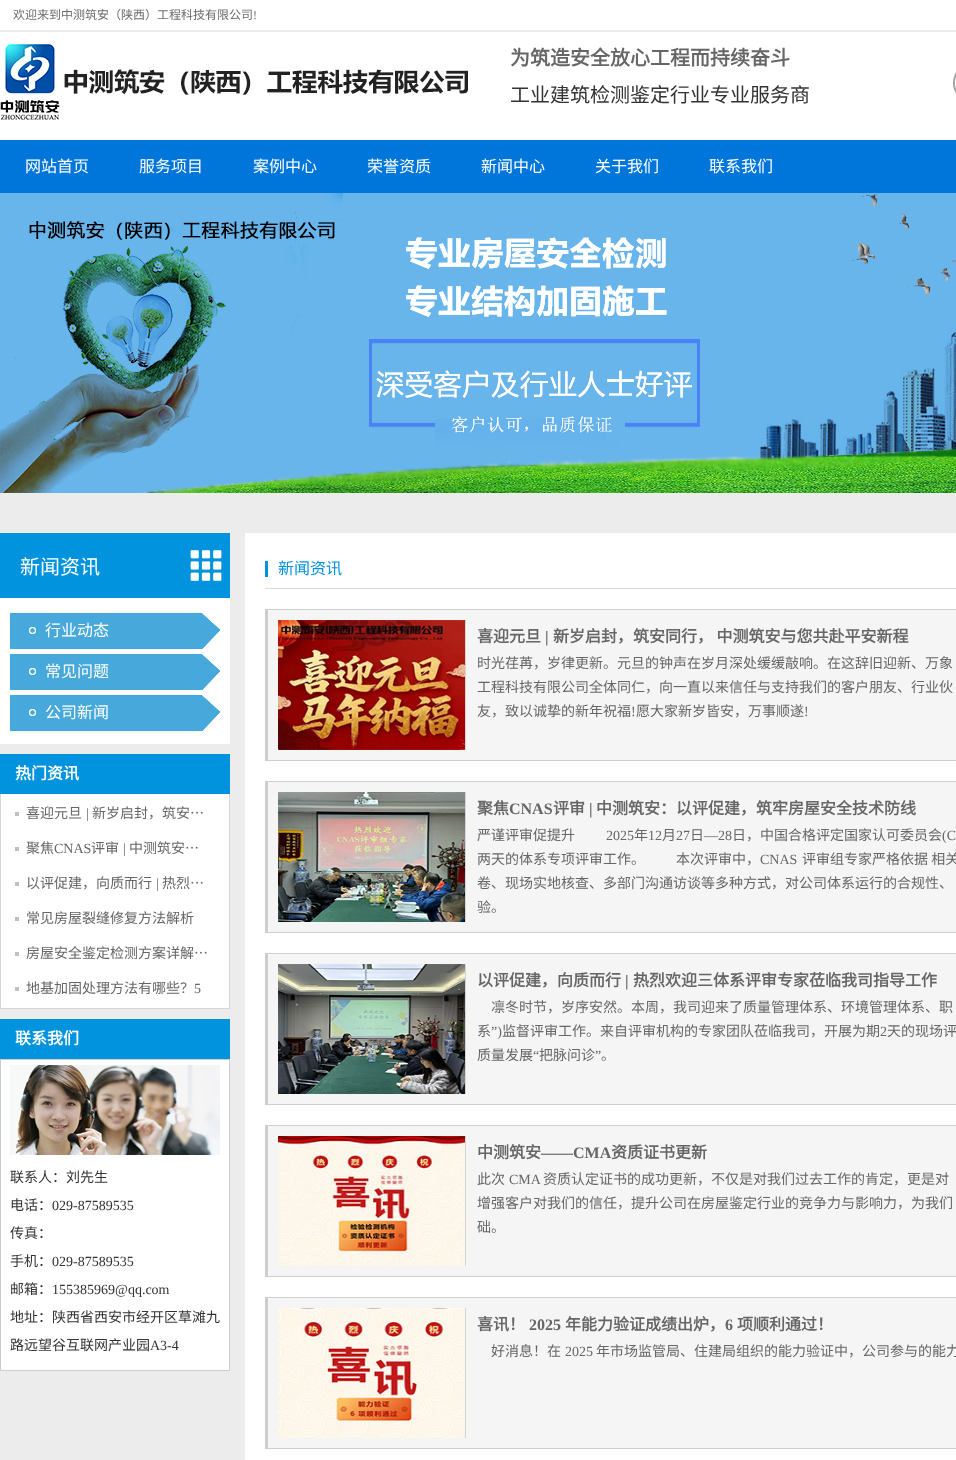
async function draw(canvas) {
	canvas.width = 956;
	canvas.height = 1460;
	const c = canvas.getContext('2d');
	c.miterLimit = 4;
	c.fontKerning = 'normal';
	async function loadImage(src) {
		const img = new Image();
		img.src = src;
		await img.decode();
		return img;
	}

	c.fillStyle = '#fff';
	c.fillRect(0, 0, 956, 1460);
	c.fillStyle = '#ededed';
	c.fillRect(0, 30, 956, 2);
	c.font = '12px Noto Sans CJK SC';
	c.fillStyle = '#6c6c6c';
	c.fillText('欢迎来到中测筑安（陕西）工程科技有限公司', 13, 19);
	c.font = '12px Liberation Serif';
	c.fillText('!', 253, 19);
	c.drawImage(await loadImage('img1.png'), 0, 44, 468, 76);
	c.font = 'bold 20px Noto Sans CJK SC';
	c.fillStyle = '#666';
	c.fillText('为筑造安全放心工程而持续奋斗', 510, 65);
	c.font = '20px Noto Sans CJK SC';
	c.fillStyle = '#333';
	c.fillText('工业建筑检测鉴定行业专业服务商', 510, 102);
	c.drawImage(await loadImage('img2.png'), 953, 72, 3, 22);
	c.fillStyle = '#0076db';
	c.fillRect(0, 140, 956, 53);
	c.font = '16px Noto Sans CJK SC';
	c.fillStyle = '#fff';
	for (const [text, x, y] of [
		['网站首页', 25, 172],
		['服务项目', 139, 172],
		['案例中心', 253, 172],
		['荣誉资质', 367, 172],
		['新闻中心', 481, 172],
		['关于我们', 595, 172],
		['联系我们', 709, 172],
	]) {
		c.fillText(text, x, y);
	}
	c.fillStyle = '#ececec';
	c.fillRect(0, 493, 956, 967);
	c.drawImage(await loadImage('img3.png'), 0, 193, 956, 300);
	c.fillStyle = '#0193de';
	c.fillRect(0, 533, 230, 65);
	c.drawImage(await loadImage('img4.png'), 190, 550, 32, 31);
	c.font = '20px Noto Sans CJK SC';
	c.fillStyle = '#fff';
	c.fillText('新闻资讯', 20, 574);
	c.fillRect(0, 598, 230, 146);
	c.drawImage(await loadImage('img5.png'), 10, 613, 210, 36);
	c.font = '16px Noto Sans CJK SC';
	c.fillText('行业动态', 45, 636);
	c.drawImage(await loadImage('img5.png'), 10, 654, 210, 36);
	c.fillText('常见问题', 45, 677);
	c.drawImage(await loadImage('img5.png'), 10, 695, 210, 36);
	c.fillText('公司新闻', 45, 718);
	c.fillStyle = '#0193de';
	c.fillRect(0, 754, 230, 40);
	c.font = 'bold 16px Noto Sans CJK SC';
	c.fillStyle = '#fff';
	c.fillText('热门资讯', 15, 779);
	for (const [x, y, w, h, color] of [
		[1, 794, 228, 214, '#fff'],
		[229, 794, 1, 215, '#d7d7d7'],
		[0, 1008, 230, 1, '#d7d7d7'],
		[0, 794, 1, 215, '#d7d7d7'],
		[15, 812, 4, 4, '#c0c0c0'],
	]) {
		c.fillStyle = color;
		c.fillRect(x, y, w, h);
	}
	c.font = '14px Noto Sans CJK SC';
	c.fillStyle = '#666';
	c.fillText('喜迎元旦', 26, 818);
	c.font = '14px Liberation Serif';
	c.fillText('|', 86, 818);
	c.font = '14px Noto Sans CJK SC';
	c.fillText('新岁启封，筑安…', 92, 818);
	c.fillStyle = '#c0c0c0';
	c.fillRect(15, 847, 4, 4);
	c.fillStyle = '#666';
	c.fillText('聚焦', 26, 853);
	c.font = '14px Liberation Serif';
	c.fillText('CNAS', 54, 853);
	c.font = '14px Noto Sans CJK SC';
	c.fillText('评审', 91, 853);
	c.font = '14px Liberation Serif';
	c.fillText('|', 123, 853);
	c.font = '14px Noto Sans CJK SC';
	c.fillText('中测筑安…', 129, 853);
	c.fillStyle = '#c0c0c0';
	c.fillRect(15, 882, 4, 4);
	c.fillStyle = '#666';
	c.fillText('以评促建，向质而行', 26, 888);
	c.font = '14px Liberation Serif';
	c.fillText('|', 156, 888);
	c.font = '14px Noto Sans CJK SC';
	c.fillText('热烈…', 162, 888);
	c.fillStyle = '#c0c0c0';
	c.fillRect(15, 917, 4, 4);
	c.fillStyle = '#666';
	c.fillText('常见房屋裂缝修复方法解析', 26, 923);
	c.fillStyle = '#c0c0c0';
	c.fillRect(15, 952, 4, 4);
	c.fillStyle = '#666';
	c.fillText('房屋安全鉴定检测方案详解…', 26, 958);
	c.fillStyle = '#c0c0c0';
	c.fillRect(15, 987, 4, 4);
	c.fillStyle = '#666';
	c.fillText('地基加固处理方法有哪些？', 26, 993);
	c.font = '14px Liberation Serif';
	c.fillText('5', 194, 993);
	c.fillStyle = '#0193de';
	c.fillRect(0, 1019, 230, 40);
	c.font = 'bold 16px Noto Sans CJK SC';
	c.fillStyle = '#fff';
	c.fillText('联系我们', 15, 1044);
	c.beginPath();
	c.rect(0.5, 1059.5, 229, 311);
	c.fill();
	c.strokeStyle = '#ccc';
	c.stroke();
	c.drawImage(await loadImage('img6.png'), 10, 1065, 210, 90);
	c.font = '14px Noto Sans CJK SC';
	c.fillStyle = '#333';
	c.fillText('联系人：刘先生', 10, 1182);
	c.fillText('电话：', 10, 1210);
	c.font = '14px Liberation Serif';
	c.fillText('029-87589535', 52, 1210);
	c.font = '14px Noto Sans CJK SC';
	c.fillText('传真：', 10, 1238);
	c.fillText('手机：', 10, 1266);
	c.font = '14px Liberation Serif';
	c.fillText('029-87589535', 52, 1266);
	c.font = '14px Noto Sans CJK SC';
	c.fillText('邮箱：', 10, 1294);
	c.font = '14px Liberation Serif';
	c.fillText('155385969@qq.com', 52, 1294);
	c.font = '14px Noto Sans CJK SC';
	c.fillText('地址：陕西省西安市经开区草滩九', 10, 1322);
	c.fillText('路远望谷互联网产业园', 10, 1350);
	c.font = '14px Liberation Serif';
	c.fillText('A3-4', 150, 1350);
	for (const [x, y, w, h, color] of [
		[245, 533, 711, 927, '#fff'],
		[265, 588, 691, 1, '#dbdbdb'],
		[265, 561, 3, 16, '#0193de'],
	]) {
		c.fillStyle = color;
		c.fillRect(x, y, w, h);
	}
	c.font = '16px Noto Sans CJK SC';
	c.fillText('新闻资讯', 278, 574);
	for (const [x, y, w, h, color] of [
		[268, 610, 688, 150, '#f6f5f5'],
		[265, 609, 691, 1, '#cecece'],
		[265, 760, 691, 1, '#cecece'],
		[265, 609, 3, 152, '#cecece'],
		[465, 620, 1, 130, '#d5d4d4'],
	]) {
		c.fillStyle = color;
		c.fillRect(x, y, w, h);
	}
	c.drawImage(await loadImage('img7.png'), 278, 620, 187, 130);
	c.font = 'bold 16px Noto Sans CJK SC';
	c.fillStyle = '#666';
	c.fillText('喜迎元旦', 477, 642);
	c.font = 'bold 16px Liberation Serif';
	c.fillText('|', 545, 642);
	c.font = 'bold 16px Noto Sans CJK SC';
	c.fillText('新岁启封，筑安同行， 中测筑安与您共赴平安新程', 553, 642);
	c.font = '14px Noto Sans CJK SC';
	for (const [text, x, y] of [
		['时光荏苒，岁律更新。元旦的钟声在岁月深处缓缓敲响。在这辞旧迎新、万象', 477, 668],
		['工程科技有限公司全体同仁，向一直以来信任与支持我们的客户朋友、行业伙', 477, 692],
		['友，致以诚挚的新年祝福', 477, 716],
	]) {
		c.fillText(text, x, y);
	}
	c.font = '14px Liberation Serif';
	c.fillText('!', 631, 716);
	c.font = '14px Noto Sans CJK SC';
	c.fillText('愿大家新岁皆安，万事顺遂', 636, 716);
	c.font = '14px Liberation Serif';
	c.fillText('!', 804, 716);
	for (const [x, y, w, h, color] of [
		[268, 782, 688, 150, '#f6f5f5'],
		[265, 781, 691, 1, '#cecece'],
		[265, 932, 691, 1, '#cecece'],
		[265, 781, 3, 152, '#cecece'],
		[465, 792, 1, 130, '#d5d4d4'],
	]) {
		c.fillStyle = color;
		c.fillRect(x, y, w, h);
	}
	c.drawImage(await loadImage('img8.png'), 278, 792, 187, 130);
	c.font = 'bold 16px Noto Sans CJK SC';
	c.fillStyle = '#666';
	c.fillText('聚焦', 477, 814);
	c.font = 'bold 16px Liberation Serif';
	c.fillText('CNAS', 509, 814);
	c.font = 'bold 16px Noto Sans CJK SC';
	c.fillText('评审', 553, 814);
	c.font = 'bold 16px Liberation Serif';
	c.fillText('|', 589, 814);
	c.font = 'bold 16px Noto Sans CJK SC';
	c.fillText('中测筑安：以评促建，筑牢房屋安全技术防线', 596, 814);
	c.font = '14px Noto Sans CJK SC';
	c.fillText('严谨评审促提升', 477, 840);
	c.font = '14px Liberation Serif';
	c.fillText('2025', 606, 840);
	c.font = '14px Noto Sans CJK SC';
	c.fillText('年', 634, 840);
	c.font = '14px Liberation Serif';
	c.fillText('12', 648, 840);
	c.font = '14px Noto Sans CJK SC';
	c.fillText('月', 662, 840);
	c.font = '14px Liberation Serif';
	c.fillText('27', 676, 840);
	c.font = '14px Noto Sans CJK SC';
	c.fillText('日', 690, 840);
	c.font = '14px Liberation Serif';
	c.fillText('—28', 704, 840);
	c.font = '14px Noto Sans CJK SC';
	c.fillText('日，中国合格评定国家认可委员会', 732, 840);
	c.font = '14px Liberation Serif';
	c.fillText('(C', 942, 840);
	c.font = '14px Noto Sans CJK SC';
	c.fillText('两天的体系专项评审工作。', 477, 864);
	c.fillText('本次评审中，', 676, 864);
	c.font = '14px Liberation Serif';
	c.fillText('CNAS', 760, 864);
	c.font = '14px Noto Sans CJK SC';
	for (const [text, x, y] of [
		['评审组专家严格依据 相关', 802, 864],
		['卷、现场实地核查、多部门沟通访谈等多种方式，对公司体系运行的合规性、', 477, 888],
		['验。', 477, 912],
	]) {
		c.fillText(text, x, y);
	}
	for (const [x, y, w, h, color] of [
		[268, 954, 688, 150, '#f6f5f5'],
		[265, 953, 691, 1, '#cecece'],
		[265, 1104, 691, 1, '#cecece'],
		[265, 953, 3, 152, '#cecece'],
		[465, 964, 1, 130, '#d5d4d4'],
	]) {
		c.fillStyle = color;
		c.fillRect(x, y, w, h);
	}
	c.drawImage(await loadImage('img9.png'), 278, 964, 187, 130);
	c.font = 'bold 16px Noto Sans CJK SC';
	c.fillStyle = '#666';
	c.fillText('以评促建，向质而行', 477, 986);
	c.font = 'bold 16px Liberation Serif';
	c.fillText('|', 625, 986);
	c.font = 'bold 16px Noto Sans CJK SC';
	c.fillText('热烈欢迎三体系评审专家莅临我司指导工作', 633, 986);
	c.font = '14px Noto Sans CJK SC';
	c.fillText('凛冬时节，岁序安然。本周，我司迎来了质量管理体系、环境管理体系、职', 491, 1012);
	c.fillText('系', 477, 1036);
	c.font = '14px Liberation Serif';
	c.fillText('”)', 491, 1036);
	c.font = '14px Noto Sans CJK SC';
	c.fillText('监督评审工作。来自评审机构的专家团队莅临我司，开展为期', 502, 1036);
	c.font = '14px Liberation Serif';
	c.fillText('2', 880, 1036);
	c.font = '14px Noto Sans CJK SC';
	c.fillText('天的现场评', 887, 1036);
	c.fillText('质量发展', 477, 1060);
	c.font = '14px Liberation Serif';
	c.fillText('“', 533, 1060);
	c.font = '14px Noto Sans CJK SC';
	c.fillText('把脉问诊', 539, 1060);
	c.font = '14px Liberation Serif';
	c.fillText('”', 595, 1060);
	c.font = '14px Noto Sans CJK SC';
	c.fillText('。', 601, 1060);
	for (const [x, y, w, h, color] of [
		[268, 1126, 688, 150, '#f6f5f5'],
		[265, 1125, 691, 1, '#cecece'],
		[265, 1276, 691, 1, '#cecece'],
		[265, 1125, 3, 152, '#cecece'],
		[465, 1136, 1, 130, '#d5d4d4'],
	]) {
		c.fillStyle = color;
		c.fillRect(x, y, w, h);
	}
	c.drawImage(await loadImage('img10.png'), 278, 1136, 187, 130);
	c.font = 'bold 16px Noto Sans CJK SC';
	c.fillStyle = '#666';
	c.fillText('中测筑安', 477, 1158);
	c.font = 'bold 16px Liberation Serif';
	c.fillText('——CMA', 541, 1158);
	c.font = 'bold 16px Noto Sans CJK SC';
	c.fillText('资质证书更新', 611, 1158);
	c.font = '14px Noto Sans CJK SC';
	c.fillText('此次', 477, 1184);
	c.font = '14px Liberation Serif';
	c.fillText('CMA', 509, 1184);
	c.font = '14px Noto Sans CJK SC';
	for (const [text, x, y] of [
		['资质认定证书的成功更新，不仅是对我们过去工作的肯定，更是对', 543, 1184],
		['增强客户对我们的信任，提升公司在房屋鉴定行业的竞争力与影响力，为我们', 477, 1208],
		['础。', 477, 1232],
	]) {
		c.fillText(text, x, y);
	}
	for (const [x, y, w, h, color] of [
		[268, 1298, 688, 150, '#f6f5f5'],
		[265, 1297, 691, 1, '#cecece'],
		[265, 1448, 691, 1, '#cecece'],
		[265, 1297, 3, 152, '#cecece'],
		[465, 1308, 1, 130, '#d5d4d4'],
	]) {
		c.fillStyle = color;
		c.fillRect(x, y, w, h);
	}
	c.drawImage(await loadImage('img11.png'), 278, 1308, 187, 130);
	c.font = 'bold 16px Noto Sans CJK SC';
	c.fillStyle = '#666';
	c.fillText('喜讯！', 477, 1330);
	c.font = 'bold 16px Liberation Serif';
	c.fillText('2025', 529, 1330);
	c.font = 'bold 16px Noto Sans CJK SC';
	c.fillText('年能力验证成绩出炉，', 565, 1330);
	c.font = 'bold 16px Liberation Serif';
	c.fillText('6', 725, 1330);
	c.font = 'bold 16px Noto Sans CJK SC';
	c.fillText('项顺利通过！', 737, 1330);
	c.font = '14px Noto Sans CJK SC';
	c.fillText('好消息！在', 491, 1356);
	c.font = '14px Liberation Serif';
	c.fillText('2025', 565, 1356);
	c.font = '14px Noto Sans CJK SC';
	c.fillText('年市场监管局、住建局组织的能力验证中，公司参与的能力', 596, 1356);
}

draw(document.querySelector('canvas'));
